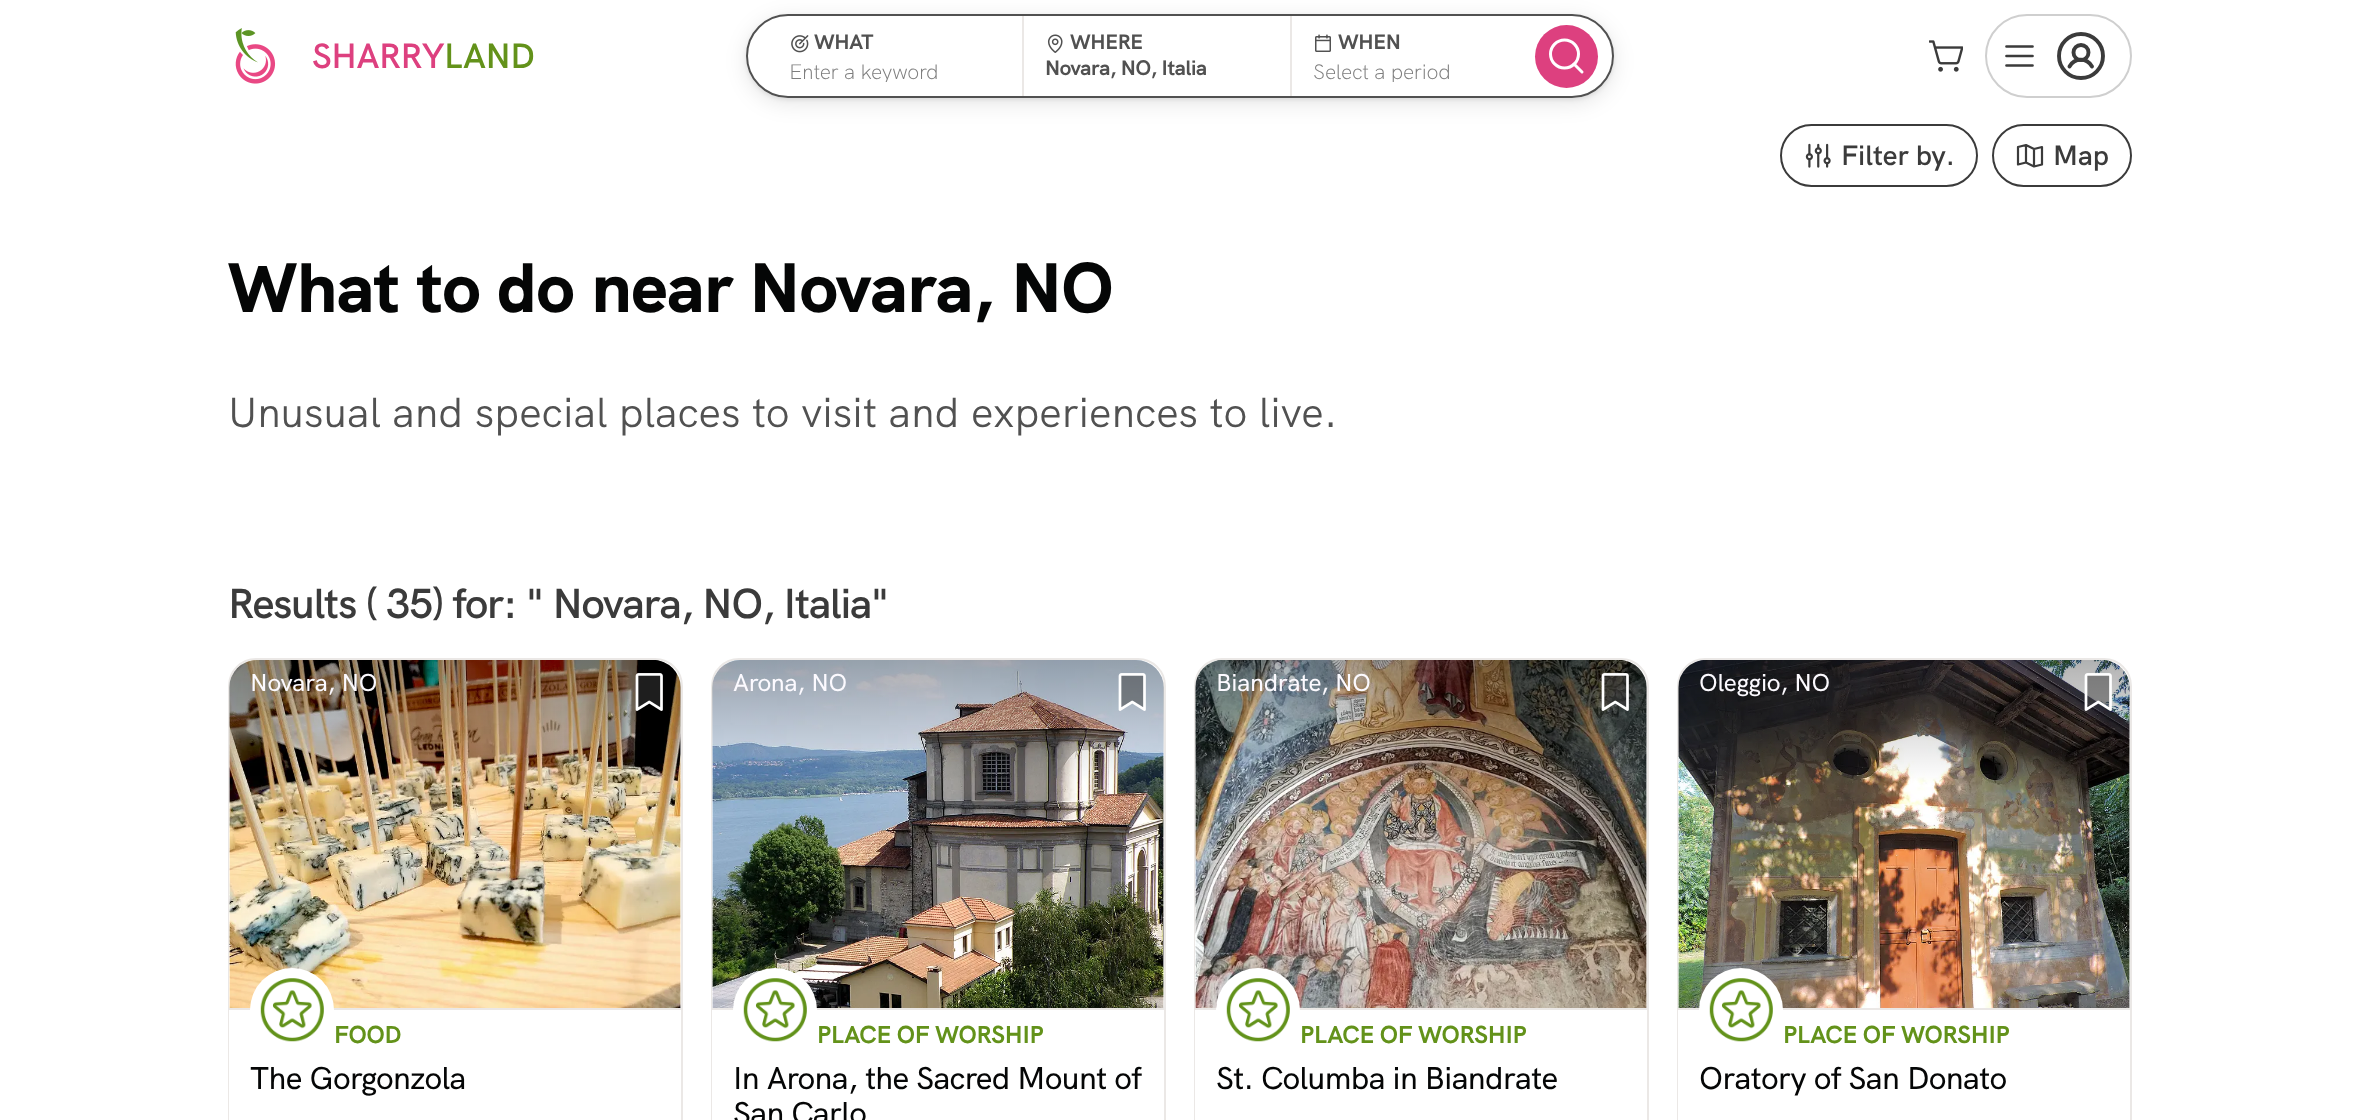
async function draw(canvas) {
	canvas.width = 2359;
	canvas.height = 1120;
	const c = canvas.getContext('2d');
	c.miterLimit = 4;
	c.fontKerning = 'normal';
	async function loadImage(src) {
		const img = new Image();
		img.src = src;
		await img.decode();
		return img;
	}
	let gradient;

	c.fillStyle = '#fff';
	c.fillRect(0, 0, 2359, 1120);
	c.drawImage(await loadImage('img1.png'), 235, 28, 41, 56);
	c.letterSpacing = '-0.4px';
	c.font = '600 35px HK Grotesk';
	c.fillStyle = '#dd407f';
	c.fillText('SHARRY', 312, 68);
	c.fillStyle = '#63921a';
	c.fillText('LAND', 444, 68);
	c.save();
	c.beginPath();
	c.moveTo(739, 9);
	c.lineTo(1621, 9);
	c.lineTo(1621, 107);
	c.lineTo(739, 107);
	c.closePath();
	c.moveTo(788, 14);
	c.lineTo(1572, 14);
	c.bezierCurveTo(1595, 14, 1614, 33, 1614, 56);
	c.bezierCurveTo(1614, 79, 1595, 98, 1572, 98);
	c.lineTo(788, 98);
	c.bezierCurveTo(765, 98, 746, 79, 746, 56);
	c.bezierCurveTo(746, 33, 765, 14, 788, 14);
	c.closePath();
	c.clip('evenodd');
	c.fillStyle = '#00000014';
	c.filter = 'blur(2px)';
	c.beginPath();
	c.roundRect(746, 16, 868, 84, 42);
	c.fill();
	c.filter = 'none';
	c.restore();
	c.save();
	c.beginPath();
	c.moveTo(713, 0);
	c.lineTo(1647, 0);
	c.lineTo(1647, 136);
	c.lineTo(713, 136);
	c.closePath();
	c.moveTo(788, 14);
	c.lineTo(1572, 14);
	c.bezierCurveTo(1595, 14, 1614, 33, 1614, 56);
	c.bezierCurveTo(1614, 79, 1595, 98, 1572, 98);
	c.lineTo(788, 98);
	c.bezierCurveTo(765, 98, 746, 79, 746, 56);
	c.bezierCurveTo(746, 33, 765, 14, 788, 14);
	c.closePath();
	c.clip('evenodd');
	c.fillStyle = '#0000001a';
	c.filter = 'blur(10.5px)';
	c.beginPath();
	c.roundRect(746, 19, 868, 84, 42);
	c.fill();
	c.filter = 'none';
	c.restore();
	c.beginPath();
	c.roundRect(747, 15, 866, 82, 41);
	c.strokeStyle = '#515151';
	c.lineWidth = 2;
	c.stroke();
	c.fillStyle = '#ebe8e6';
	c.fillRect(1022, 16, 2, 80);
	c.drawImage(await loadImage('img2.png'), 791, 35, 18, 18);
	c.font = 'bold 21px HK Grotesk';
	c.fillStyle = '#515151';
	c.fillText('WHAT', 814, 49);
	c.save();
	c.beginPath();
	c.rect(789, 58, 149, 24);
	c.clip();
	c.letterSpacing = '-0.25px';
	c.font = '300 21px HK Grotesk';
	c.fillStyle = '#7e7e7e';
	c.fillText('Enter a keyword', 789, 79);
	c.restore();
	c.fillStyle = '#ebe8e6';
	c.fillRect(1290, 16, 2, 80);
	c.drawImage(await loadImage('img3.png'), 1047, 34, 16, 19);
	c.fillStyle = '#515151';
	c.fillText('WHERE', 1070, 49);
	c.fillText('Novara, NO, Italia', 1045, 75);
	c.drawImage(await loadImage('img4.png'), 1315, 34, 16, 18);
	c.fillText('WHEN', 1338, 49);
	c.save();
	c.beginPath();
	c.rect(1313, 58, 138, 24);
	c.clip();
	c.letterSpacing = '-0.25px';
	c.font = '300 21px HK Grotesk';
	c.fillStyle = '#7e7e7e';
	c.fillText('Select a period', 1313, 79);
	c.restore();
	c.fillStyle = '#dd407f';
	c.beginPath();
	c.arc(1566.5, 56.5, 31.5, 0, 2 * Math.PI);
	c.fill();
	c.beginPath();
	c.arc(1564.5, 54, 14, 0, 2 * Math.PI);
	c.strokeStyle = '#fff';
	c.lineWidth = 3;
	c.stroke();
	c.beginPath();
	c.moveTo(1574, 64);
	c.lineTo(1582, 72);
	c.lineCap = 'round';
	c.lineJoin = 'round';
	c.stroke();
	c.drawImage(await loadImage('img5.png'), 1929, 40, 34, 32);
	c.beginPath();
	c.roundRect(1986, 15, 145, 82, 41);
	c.strokeStyle = '#cfcfcf';
	c.lineWidth = 2;
	c.lineJoin = 'miter';
	c.stroke();
	c.beginPath();
	c.moveTo(2006.5, 56);
	c.lineTo(2032.5, 56);
	c.moveTo(2006.5, 46.5);
	c.lineTo(2032.5, 46.5);
	c.moveTo(2006.5, 65.5);
	c.lineTo(2032.5, 65.5);
	c.strokeStyle = '#3b3b3b';
	c.lineWidth = 2.7;
	c.lineJoin = 'round';
	c.stroke();
	c.beginPath();
	c.arc(2081, 56, 22, 0, 2 * Math.PI);
	c.lineWidth = 3.9;
	c.stroke();
	c.beginPath();
	c.arc(2081, 52.5, 7.5, 0, 2 * Math.PI);
	c.stroke();
	c.beginPath();
	c.moveTo(2069.5, 66.5);
	c.bezierCurveTo(2074.5, 57.5, 2087, 57.5, 2092, 66.5);
	c.stroke();
	c.beginPath();
	c.roundRect(1781, 125, 196, 61, 30.5);
	c.lineWidth = 2;
	c.lineJoin = 'miter';
	c.stroke();
	c.drawImage(await loadImage('img6.png'), 1805, 143, 26, 25);
	c.letterSpacing = '0px';
	c.font = '600 28px HK Grotesk';
	c.fillStyle = '#3b3b3b';
	c.fillText('Filter by.', 1841, 165);
	c.beginPath();
	c.roundRect(1993, 125, 138, 61, 30.5);
	c.stroke();
	c.beginPath();
	c.moveTo(2026, 162.5);
	c.lineTo(2018, 164.5);
	c.lineTo(2018, 147);
	c.lineTo(2026, 145);
	c.moveTo(2034, 166.5);
	c.lineTo(2026, 162.5);
	c.lineTo(2026, 145);
	c.lineTo(2034, 149);
	c.closePath();
	c.moveTo(2034, 149);
	c.lineTo(2042, 147);
	c.lineTo(2042, 164.5);
	c.lineTo(2034, 166.5);
	c.lineWidth = 2.2;
	c.lineJoin = 'round';
	c.stroke();
	c.fillText('Map', 2053, 165);
	c.font = '800 70px HK Grotesk';
	c.fillStyle = '#050606';
	c.fillText('What to do near Novara, NO', 228, 312);
	c.font = '42px HK Grotesk';
	c.fillStyle = '#515151';
	c.fillText('Unusual and special places to visit and experiences to live.', 228, 427);
	c.letterSpacing = '-1.15px';
	c.font = '600 42px HK Grotesk';
	c.fillStyle = '#3b3b3b';
	c.fillText('Results ( 35) for: " Novara, NO, Italia"', 228, 618);
	c.beginPath();
	c.roundRect(229, 659, 453, 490, 27);
	c.strokeStyle = '#ebe8e6';
	c.lineWidth = 2;
	c.lineJoin = 'miter';
	c.stroke();
	c.fillStyle = '#ebe8e6';
	c.fillRect(229, 1008, 452, 2);
	c.fillStyle = '#fff';
	c.beginPath();
	c.roundRect(229, 660, 452, 348, [28, 28, 0, 0]);
	c.fill();
	c.drawImage(await loadImage('img7.png'), 229, 660, 452, 348);
	gradient = c.createLinearGradient(455, 660, 455, 1008);
	gradient.addColorStop(0, '#0000004d');
	gradient.addColorStop(0.35, '#00000000');
	c.fillStyle = gradient;
	c.beginPath();
	c.roundRect(229, 660, 452, 348, 28);
	c.fill();
	c.letterSpacing = '-0.25px';
	c.font = '500 24.5px HK Grotesk';
	c.fillStyle = '#fcfaff';
	c.fillText('Novara, NO', 250, 691);
	c.drawImage(await loadImage('img8.png'), 635, 673, 28, 38);
	c.fillStyle = '#fff';
	c.fillRect(229, 1010, 1, 110);
	c.beginPath();
	c.arc(292, 1010, 42, 0, 2 * Math.PI);
	c.fill();
	c.drawImage(await loadImage('img9.png'), 260, 978, 64, 64);
	c.font = 'bold 24.5px HK Grotesk';
	c.fillStyle = '#63921a';
	c.fillText('FOOD', 334, 1043);
	c.letterSpacing = '-0.6px';
	c.font = '500 31.5px HK Grotesk';
	c.fillStyle = '#050606';
	c.fillText('The Gorgonzola', 250, 1089);
	c.beginPath();
	c.roundRect(712, 659, 453, 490, 27);
	c.stroke();
	c.fillStyle = '#ebe8e6';
	c.fillRect(712, 1008, 452, 2);
	c.fillStyle = '#fff';
	c.beginPath();
	c.roundRect(712, 660, 452, 348, [28, 28, 0, 0]);
	c.fill();
	c.drawImage(await loadImage('img10.png'), 712, 660, 452, 348);
	gradient = c.createLinearGradient(938, 660, 938, 1008);
	gradient.addColorStop(0, '#0000004d');
	gradient.addColorStop(0.35, '#00000000');
	c.fillStyle = gradient;
	c.beginPath();
	c.roundRect(712, 660, 452, 348, 28);
	c.fill();
	c.letterSpacing = '-0.25px';
	c.font = '500 24.5px HK Grotesk';
	c.fillStyle = '#fcfaff';
	c.fillText('Arona, NO', 733, 691);
	c.drawImage(await loadImage('img11.png'), 1118, 673, 28, 38);
	c.fillStyle = '#fff';
	c.fillRect(712, 1010, 1, 110);
	c.beginPath();
	c.arc(775, 1010, 42, 0, 2 * Math.PI);
	c.fill();
	c.drawImage(await loadImage('img12.png'), 743, 978, 64, 64);
	c.font = 'bold 24.5px HK Grotesk';
	c.fillStyle = '#63921a';
	c.fillText('PLACE OF WORSHIP', 817, 1043);
	c.letterSpacing = '-0.6px';
	c.font = '500 31.5px HK Grotesk';
	c.fillStyle = '#050606';
	c.fillText('In Arona, the Sacred Mount of', 733, 1089);
	c.fillText('San Carlo', 733, 1124);
	c.beginPath();
	c.roundRect(1195, 659, 453, 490, 27);
	c.stroke();
	c.fillStyle = '#ebe8e6';
	c.fillRect(1195, 1008, 452, 2);
	c.fillStyle = '#fff';
	c.beginPath();
	c.roundRect(1195, 660, 452, 348, [28, 28, 0, 0]);
	c.fill();
	c.drawImage(await loadImage('img13.png'), 1195, 660, 452, 348);
	gradient = c.createLinearGradient(1421, 660, 1421, 1008);
	gradient.addColorStop(0, '#0000004d');
	gradient.addColorStop(0.35, '#00000000');
	c.fillStyle = gradient;
	c.beginPath();
	c.roundRect(1195, 660, 452, 348, 28);
	c.fill();
	c.letterSpacing = '-0.25px';
	c.font = '500 24.5px HK Grotesk';
	c.fillStyle = '#fcfaff';
	c.fillText('Biandrate, NO', 1216, 691);
	c.drawImage(await loadImage('img14.png'), 1601, 673, 28, 38);
	c.fillStyle = '#fff';
	c.fillRect(1195, 1010, 1, 110);
	c.beginPath();
	c.arc(1258, 1010, 42, 0, 2 * Math.PI);
	c.fill();
	c.drawImage(await loadImage('img15.png'), 1226, 978, 64, 64);
	c.font = 'bold 24.5px HK Grotesk';
	c.fillStyle = '#63921a';
	c.fillText('PLACE OF WORSHIP', 1300, 1043);
	c.letterSpacing = '-0.6px';
	c.font = '500 31.5px HK Grotesk';
	c.fillStyle = '#050606';
	c.fillText('St. Columba in Biandrate', 1216, 1089);
	c.beginPath();
	c.roundRect(1678, 659, 453, 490, 27);
	c.stroke();
	c.fillStyle = '#ebe8e6';
	c.fillRect(1678, 1008, 452, 2);
	c.fillStyle = '#fff';
	c.beginPath();
	c.roundRect(1678, 660, 452, 348, [28, 28, 0, 0]);
	c.fill();
	c.drawImage(await loadImage('img16.png'), 1678, 660, 452, 348);
	gradient = c.createLinearGradient(1904, 660, 1904, 1008);
	gradient.addColorStop(0, '#0000004d');
	gradient.addColorStop(0.35, '#00000000');
	c.fillStyle = gradient;
	c.beginPath();
	c.roundRect(1678, 660, 452, 348, 28);
	c.fill();
	c.letterSpacing = '-0.25px';
	c.font = '500 24.5px HK Grotesk';
	c.fillStyle = '#fcfaff';
	c.fillText('Oleggio, NO', 1699, 691);
	c.drawImage(await loadImage('img17.png'), 2084, 673, 28, 38);
	c.fillStyle = '#fff';
	c.fillRect(1678, 1010, 1, 110);
	c.beginPath();
	c.arc(1741, 1010, 42, 0, 2 * Math.PI);
	c.fill();
	c.drawImage(await loadImage('img18.png'), 1709, 978, 64, 64);
	c.font = 'bold 24.5px HK Grotesk';
	c.fillStyle = '#63921a';
	c.fillText('PLACE OF WORSHIP', 1783, 1043);
	c.letterSpacing = '-0.6px';
	c.font = '500 31.5px HK Grotesk';
	c.fillStyle = '#050606';
	c.fillText('Oratory of San Donato', 1699, 1089);
}

draw(document.querySelector('canvas'));
